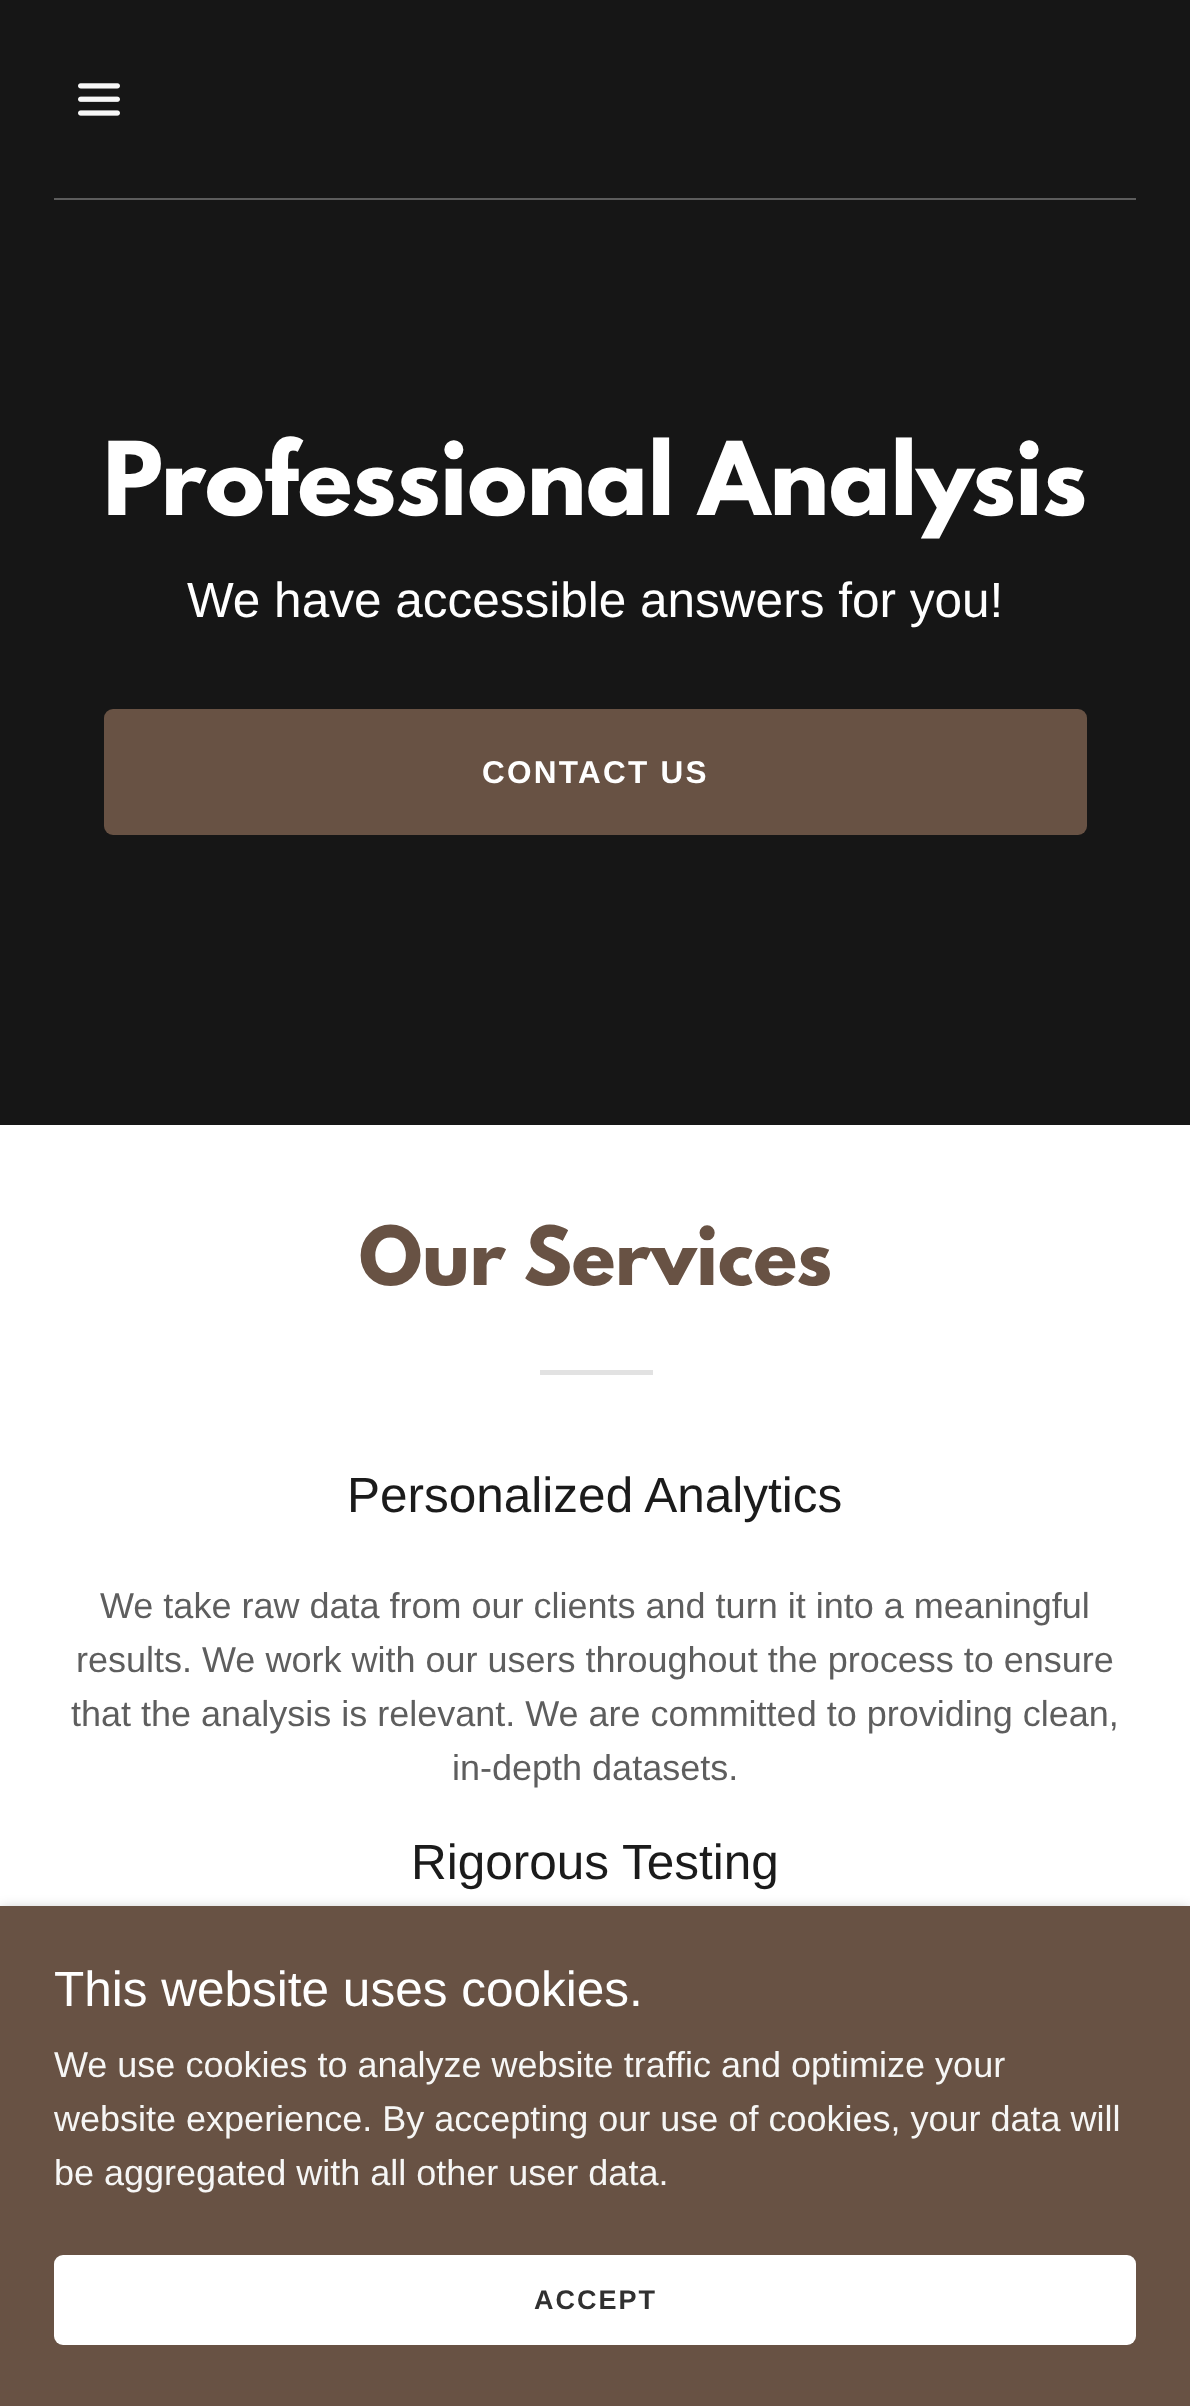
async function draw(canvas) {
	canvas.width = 1190;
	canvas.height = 2406;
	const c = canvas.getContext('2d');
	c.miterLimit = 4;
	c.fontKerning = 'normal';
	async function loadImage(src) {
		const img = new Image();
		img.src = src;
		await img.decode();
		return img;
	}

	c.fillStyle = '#161616';
	c.fillRect(0, 0, 1190, 2406);
	c.drawImage(await loadImage('img1.png'), 78, 83, 42, 33);
	c.fillStyle = '#5c5c5c';
	c.fillRect(54, 198, 1082, 2);
	c.font = 'bold 90px League Spartan';
	c.fillStyle = '#fff';
	c.fillText('Professional Analysis', 103, 515);
	c.font = '49.5px Liberation Sans';
	c.fillText('We have accessible answers for you!', 187, 617);
	c.fillStyle = '#685244';
	c.beginPath();
	c.roundRect(104, 709, 983, 126, 9);
	c.fill();
	c.letterSpacing = '2.25px';
	c.font = 'bold 31.5px Liberation Sans';
	c.fillStyle = '#fff';
	c.fillText('CONTACT US', 482, 783);
	c.fillRect(0, 1125, 1190, 781);
	c.letterSpacing = '0px';
	c.font = 'bold 72px League Spartan';
	c.fillStyle = '#685244';
	c.fillText('Our Services', 359, 1285);
	c.fillStyle = '#e2e2e2';
	c.fillRect(540, 1370, 113, 5);
	c.font = '49.5px Liberation Sans';
	c.fillStyle = '#1b1b1b';
	c.fillText('Personalized Analytics', 347, 1512);
	c.font = '36px Liberation Sans';
	c.fillStyle = '#5e5e5e';
	for (const [text, x, y] of [
		['We take raw data from our clients and turn it into a meaningful', 100, 1618],
		['results. We work with our users throughout the process to ensure', 76, 1672],
		['that the analysis is relevant. We are committed to providing clean,', 71, 1726],
		['in-depth datasets.', 452, 1780],
	]) {
		c.fillText(text, x, y);
	}
	c.font = '49.5px Liberation Sans';
	c.fillStyle = '#1b1b1b';
	c.fillText('Rigorous Testing', 411, 1879);
	c.fillStyle = '#0000004d';
	c.filter = 'blur(7px)';
	c.beginPath();
	c.rect(0, 1910, 1190, 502);
	c.fill();
	c.filter = 'none';
	c.fillStyle = '#685244';
	c.fillRect(0, 1906, 1190, 500);
	c.fillStyle = '#fff';
	c.fillText('This website uses cookies.', 54, 2006);
	c.font = '36px Liberation Sans';
	c.fillStyle = '#f6f6f5';
	for (const [text, x, y] of [
		['We use cookies to analyze website traffic and optimize your', 54, 2077],
		['website experience. By accepting our use of cookies, your data will', 54, 2131],
		['be aggregated with all other user data.', 54, 2185],
	]) {
		c.fillText(text, x, y);
	}
	c.fillStyle = '#fff';
	c.beginPath();
	c.roundRect(54, 2255, 1082, 90, 9);
	c.fill();
	c.letterSpacing = '2px';
	c.font = 'bold 27px Liberation Sans';
	c.fillStyle = '#303030';
	c.fillText('ACCEPT', 534, 2309);
}

draw(document.querySelector('canvas'));
